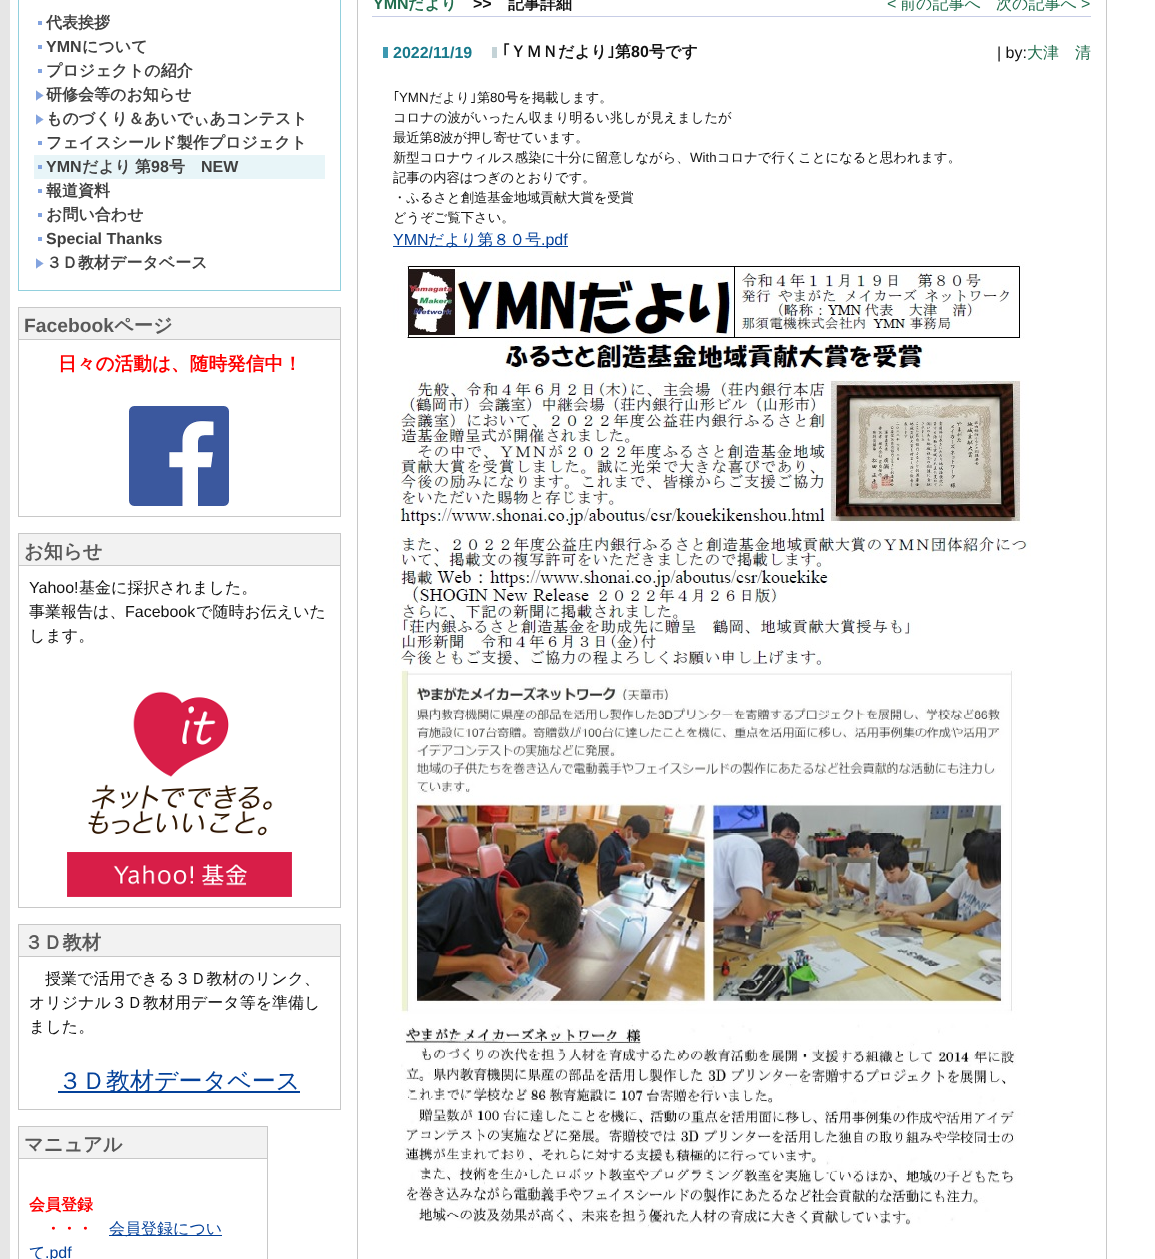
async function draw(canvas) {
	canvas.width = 1155;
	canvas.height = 1259;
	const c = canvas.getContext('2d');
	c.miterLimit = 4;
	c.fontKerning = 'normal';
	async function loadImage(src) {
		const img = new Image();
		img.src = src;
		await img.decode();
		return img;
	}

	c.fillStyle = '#e6e6e6';
	c.fillRect(0, 0, 1155, 1259);
	for (const [x, y, w, h, color] of [
		[10, 0, 1145, 1259, '#fff'],
		[340, 0, 1, 291, '#92d0dd'],
		[18, 290, 323, 1, '#92d0dd'],
		[18, 0, 1, 291, '#92d0dd'],
		[38, 21, 4, 4, '#82a3df'],
	]) {
		c.fillStyle = color;
		c.fillRect(x, y, w, h);
	}
	c.font = 'bold 16px WenQuanYi Zen Hei';
	c.fillStyle = '#404040';
	c.fillText('代表挨拶', 46, 28);
	c.fillStyle = '#82a3df';
	c.fillRect(38, 45, 4, 4);
	c.font = 'bold 16px Liberation Sans';
	c.fillStyle = '#404040';
	c.fillText('YMN', 46, 52);
	c.font = 'bold 16px WenQuanYi Zen Hei';
	c.fillText('について', 82, 52);
	c.fillStyle = '#82a3df';
	c.fillRect(38, 69, 4, 4);
	c.fillStyle = '#404040';
	c.fillText('プロジェクトの紹介', 46, 76);
	c.drawImage(await loadImage('img1.png'), 36, 90, 8, 11);
	c.fillText('研修会等のお知らせ', 46, 100);
	c.drawImage(await loadImage('img1.png'), 36, 114, 8, 11);
	c.fillText('ものづくり＆あいでぃあコンテスト', 46, 124);
	c.fillStyle = '#82a3df';
	c.fillRect(38, 141, 4, 4);
	c.fillStyle = '#404040';
	c.fillText('フェイスシールド製作プロジェクト', 46, 148);
	c.fillStyle = '#e8f5f8';
	c.fillRect(34, 155, 291, 24);
	c.fillStyle = '#82a3df';
	c.fillRect(38, 165, 4, 4);
	c.font = 'bold 16px Liberation Sans';
	c.fillStyle = '#404040';
	c.fillText('YMN', 46, 172);
	c.font = 'bold 16px WenQuanYi Zen Hei';
	c.fillText('だより', 82, 172);
	c.fillText('第', 135, 172);
	c.font = 'bold 16px Liberation Sans';
	c.fillText('98', 151, 172);
	c.font = 'bold 16px WenQuanYi Zen Hei';
	c.fillText('号', 169, 172);
	c.font = 'bold 16px Liberation Sans';
	c.fillText('NEW', 201, 172);
	c.fillStyle = '#82a3df';
	c.fillRect(38, 189, 4, 4);
	c.font = 'bold 16px WenQuanYi Zen Hei';
	c.fillStyle = '#404040';
	c.fillText('報道資料', 46, 196);
	c.fillStyle = '#82a3df';
	c.fillRect(38, 213, 4, 4);
	c.fillStyle = '#404040';
	c.fillText('お問い合わせ', 46, 220);
	c.fillStyle = '#82a3df';
	c.fillRect(38, 237, 4, 4);
	c.font = 'bold 16px Liberation Sans';
	c.fillStyle = '#404040';
	c.fillText('Special Thanks', 46, 244);
	c.drawImage(await loadImage('img1.png'), 36, 258, 8, 11);
	c.font = 'bold 16px WenQuanYi Zen Hei';
	c.fillText('３Ｄ教材データベース', 46, 268);
	for (const [x, y, w, h, color] of [
		[18, 307, 323, 1, '#c8c8c8'],
		[340, 307, 1, 210, '#c8c8c8'],
		[18, 516, 323, 1, '#c8c8c8'],
		[18, 307, 1, 210, '#c8c8c8'],
		[19, 308, 321, 31, '#f2f2f2'],
		[18, 339, 323, 1, '#c8c8c8'],
	]) {
		c.fillStyle = color;
		c.fillRect(x, y, w, h);
	}
	c.font = 'bold 19.25px Liberation Sans';
	c.fillStyle = '#595959';
	c.fillText('Facebook', 24, 332);
	c.font = 'bold 19.25px WenQuanYi Zen Hei';
	c.fillText('ページ', 114, 332);
	c.font = 'bold 18.7px WenQuanYi Zen Hei';
	c.fillStyle = '#f00';
	c.fillText('日々の活動は、随時発信中！', 58, 370);
	c.drawImage(await loadImage('img2.png'), 129, 406, 100, 100);
	for (const [x, y, w, h, color] of [
		[18, 533, 323, 1, '#c8c8c8'],
		[340, 533, 1, 375, '#c8c8c8'],
		[18, 907, 323, 1, '#c8c8c8'],
		[18, 533, 1, 375, '#c8c8c8'],
		[19, 534, 321, 31, '#f2f2f2'],
		[18, 565, 323, 1, '#c8c8c8'],
	]) {
		c.fillStyle = color;
		c.fillRect(x, y, w, h);
	}
	c.font = 'bold 19.25px WenQuanYi Zen Hei';
	c.fillStyle = '#595959';
	c.fillText('お知らせ', 24, 558);
	c.font = '16px Liberation Sans';
	c.fillStyle = '#111';
	c.fillText('Yahoo!', 29, 593);
	c.font = '500 16px WenQuanYi Zen Hei';
	c.fillText('基金に採択されました。', 79, 593);
	c.fillText('事業報告は、', 29, 617);
	c.font = '16px Liberation Sans';
	c.fillText('Facebook', 125, 617);
	c.font = '500 16px WenQuanYi Zen Hei';
	c.fillText('で随時お伝えいた', 196, 617);
	c.fillText('します。', 29, 641);
	c.drawImage(await loadImage('img3.png'), 67, 691, 225, 206);
	for (const [x, y, w, h, color] of [
		[18, 924, 323, 1, '#c8c8c8'],
		[340, 924, 1, 186, '#c8c8c8'],
		[18, 1109, 323, 1, '#c8c8c8'],
		[18, 924, 1, 186, '#c8c8c8'],
		[19, 925, 321, 31, '#f2f2f2'],
		[18, 956, 323, 1, '#c8c8c8'],
	]) {
		c.fillStyle = color;
		c.fillRect(x, y, w, h);
	}
	c.font = 'bold 19.25px WenQuanYi Zen Hei';
	c.fillStyle = '#595959';
	c.fillText('３Ｄ教材', 24, 949);
	c.font = '500 16px WenQuanYi Zen Hei';
	c.fillStyle = '#111';
	for (const [text, x, y] of [
		['授業で活用できる３Ｄ教材のリンク、', 45, 984],
		['オリジナル３Ｄ教材用データ等を準備し', 29, 1008],
		['ました。', 29, 1032],
	]) {
		c.fillText(text, x, y);
	}
	c.fillStyle = '#04419a';
	c.fillRect(58, 1091, 242, 2);
	c.font = '500 24px WenQuanYi Zen Hei';
	c.fillText('３Ｄ教材データベース', 58, 1089);
	for (const [x, y, w, h, color] of [
		[18, 1126, 250, 1, '#c8c8c8'],
		[267, 1126, 1, 133, '#c8c8c8'],
		[18, 1126, 1, 133, '#c8c8c8'],
		[19, 1127, 248, 31, '#f2f2f2'],
		[18, 1158, 250, 1, '#c8c8c8'],
	]) {
		c.fillStyle = color;
		c.fillRect(x, y, w, h);
	}
	c.font = 'bold 19.25px WenQuanYi Zen Hei';
	c.fillStyle = '#595959';
	c.fillText('マニュアル', 24, 1151);
	c.font = 'bold 16px WenQuanYi Zen Hei';
	c.fillStyle = '#f00';
	c.fillText('会員登録', 29, 1210);
	c.fillText('・・・', 45, 1234);
	c.fillStyle = '#04419a';
	c.fillRect(109, 1235, 113, 1);
	c.font = '500 16px WenQuanYi Zen Hei';
	c.fillText('会員登録につい', 109, 1234);
	c.fillText('て', 29, 1258);
	c.font = '16px Liberation Sans';
	c.fillText('.pdf', 45, 1258);
	c.fillStyle = '#c8c8c8';
	c.fillRect(1106, 0, 1, 1259);
	c.fillRect(357, 0, 1, 1259);
	c.font = 'bold 16px Liberation Sans';
	c.fillStyle = '#226e4e';
	c.fillText('YMN', 373, 9);
	c.font = 'bold 16px WenQuanYi Zen Hei';
	c.fillText('だより', 408, 9);
	c.font = 'bold 16px Liberation Sans';
	c.fillStyle = '#111';
	c.fillText('>>', 473, 9);
	c.font = 'bold 16px WenQuanYi Zen Hei';
	c.fillText('記事詳細', 508, 9);
	c.font = '16px Liberation Sans';
	c.fillStyle = '#226e4e';
	c.fillText('<', 887, 9);
	c.font = '500 16px WenQuanYi Zen Hei';
	c.fillText('前の記事へ', 900, 9);
	c.fillText('次の記事へ', 996, 9);
	c.font = '16px Liberation Sans';
	c.fillText('>', 1081, 9);
	c.fillStyle = '#3d99b1';
	c.fillRect(383, 47, 5, 11);
	c.font = 'bold 16px Liberation Sans';
	c.fillStyle = '#187a8c';
	c.fillText('2022/11/19', 393, 58);
	c.fillStyle = '#c4d3d7';
	c.fillRect(492, 47, 5, 11);
	c.font = 'bold 16px IPAPGothic';
	c.fillStyle = '#111';
	c.fillText('｢', 502, 57);
	c.font = 'bold 16px WenQuanYi Zen Hei';
	c.fillText('ＹＭＮだより', 510, 57);
	c.font = 'bold 16px IPAPGothic';
	c.fillText('｣', 607, 57);
	c.font = 'bold 16px WenQuanYi Zen Hei';
	c.fillText('第', 615, 57);
	c.font = 'bold 16px Liberation Sans';
	c.fillText('80', 631, 57);
	c.font = 'bold 16px WenQuanYi Zen Hei';
	c.fillText('号です', 649, 57);
	c.fillStyle = '#c7cde6';
	c.fillRect(372, 16, 719, 1);
	c.font = '16px Liberation Sans';
	c.fillStyle = '#111';
	c.fillText('| by:', 997, 58);
	c.font = '500 16px WenQuanYi Zen Hei';
	c.fillStyle = '#226e4e';
	c.fillText('大津　清', 1027, 58);
	c.font = '13.3px IPAPGothic';
	c.fillStyle = '#111';
	c.fillText('｢', 393, 102);
	c.font = '13.3px Liberation Sans';
	c.fillText('YMN', 399, 102);
	c.font = '500 13.3px WenQuanYi Zen Hei';
	c.fillText('だより', 429, 102);
	c.font = '13.3px IPAPGothic';
	c.fillText('｣', 470, 102);
	c.font = '500 13.3px WenQuanYi Zen Hei';
	c.fillText('第', 477, 102);
	c.font = '13.3px Liberation Sans';
	c.fillText('80', 490, 102);
	c.font = '500 13.3px WenQuanYi Zen Hei';
	for (const [text, x, y] of [
		['号を掲載します。', 505, 102],
		['コロナの波がいったん収まり明るい兆しが見えましたが', 393, 122],
		['最近第', 393, 142],
	]) {
		c.fillText(text, x, y);
	}
	c.font = '13.3px Liberation Sans';
	c.fillText('8', 433, 142);
	c.font = '500 13.3px WenQuanYi Zen Hei';
	c.fillText('波が押し寄せています。', 440, 142);
	c.fillText('新型コロナウィルス感染に十分に留意しながら、', 393, 162);
	c.font = '13.3px Liberation Sans';
	c.fillText('With', 690, 162);
	c.font = '500 13.3px WenQuanYi Zen Hei';
	for (const [text, x, y] of [
		['コロナで行くことになると思われます。', 717, 162],
		['記事の内容はつぎのとおりです。', 393, 182],
		['・ふるさと創造基金地域貢献大賞を受賞', 393, 202],
		['どうぞご覧下さい。', 393, 222],
	]) {
		c.fillText(text, x, y);
	}
	c.font = '16px Liberation Sans';
	c.fillStyle = '#04419a';
	c.fillText('YMN', 393, 245);
	c.fillRect(393, 246, 175, 1);
	c.font = '500 16px WenQuanYi Zen Hei';
	c.fillText('だより第８０号', 428, 245);
	c.font = '16px Liberation Sans';
	c.fillText('.pdf', 541, 245);
	c.drawImage(await loadImage('img4.png'), 393, 262, 638, 966);
}

draw(document.querySelector('canvas'));
